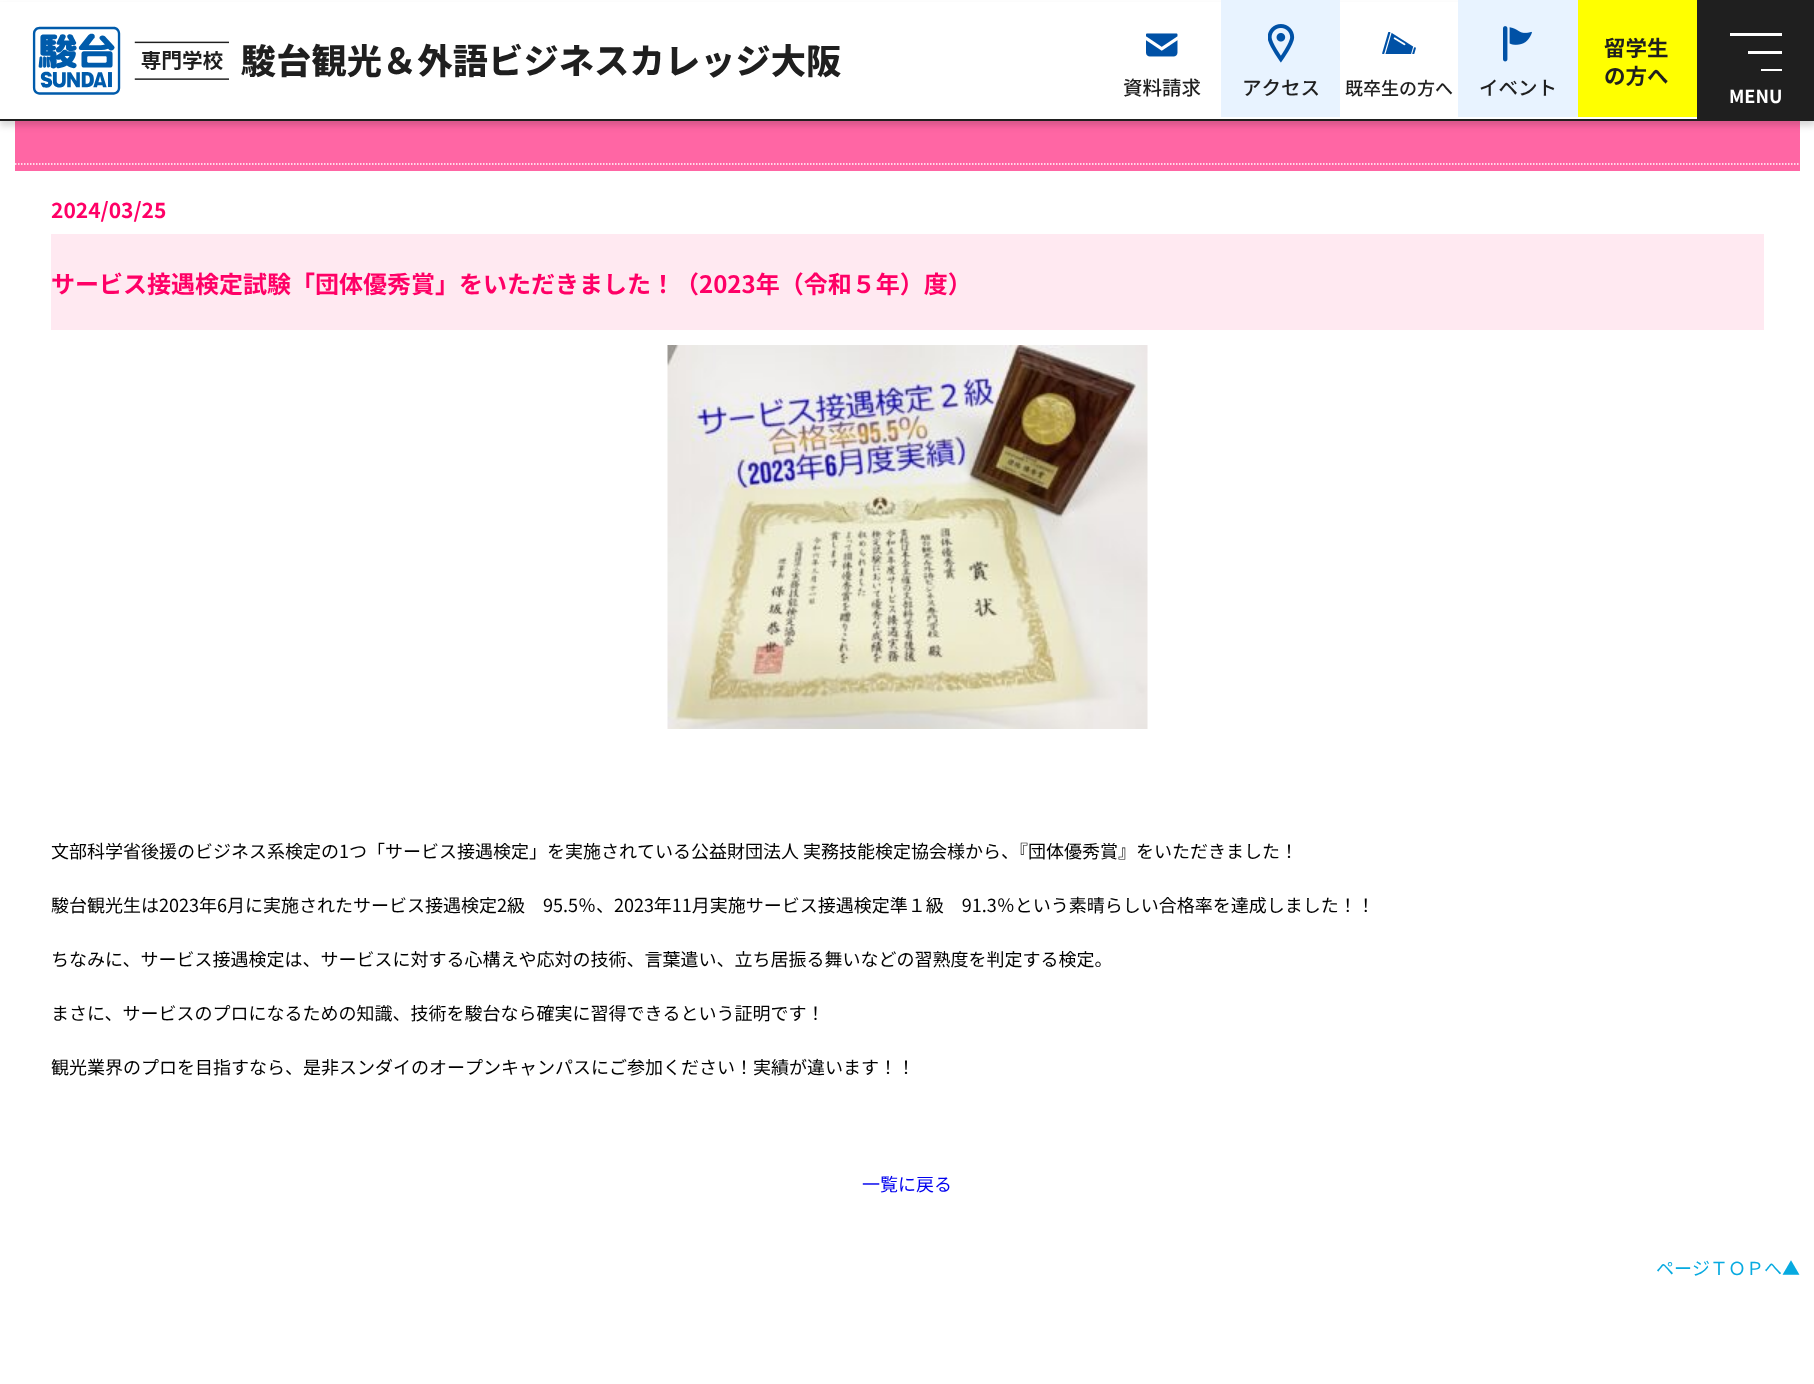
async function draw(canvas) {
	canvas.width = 1814;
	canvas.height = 1384;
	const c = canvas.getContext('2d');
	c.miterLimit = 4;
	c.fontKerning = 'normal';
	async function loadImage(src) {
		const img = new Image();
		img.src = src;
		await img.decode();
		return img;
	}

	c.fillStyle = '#fff';
	c.fillRect(0, 0, 1814, 1384);
	c.fillStyle = '#ff66a4';
	c.fillRect(15, 121, 1785, 50);
	c.fillStyle = '#00000026';
	c.filter = 'blur(3px)';
	c.beginPath();
	c.rect(0, 6, 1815, 120);
	c.fill();
	c.filter = 'none';
	c.fillStyle = '#fff';
	c.fillRect(0, 2, 1697, 117);
	c.fillStyle = '#1f1f1f';
	c.fillRect(0, 119, 1814, 2);
	c.drawImage(await loadImage('img1.png'), 32, 26, 809, 69);
	c.drawImage(await loadImage('img2.png'), 1146, 33, 32, 24);
	c.font = '500 19.5px Noto Sans JP';
	c.fillText('資料請求', 1123, 95);
	c.fillStyle = '#e8f3ff';
	c.fillRect(1221, 0, 119, 117);
	c.drawImage(await loadImage('img3.png'), 1268, 24, 27, 39);
	c.fillStyle = '#1f1f1f';
	c.fillText('アクセス', 1242, 95);
	c.drawImage(await loadImage('img4.png'), 1382, 32, 34, 22);
	c.font = '500 18px Noto Sans JP';
	c.fillText('既卒生の方へ', 1345, 95);
	c.fillStyle = '#e8f3ff';
	c.fillRect(1458, 0, 120, 117);
	c.drawImage(await loadImage('img5.png'), 1503, 26, 29, 36);
	c.font = '500 19.5px Noto Sans JP';
	c.fillStyle = '#1f1f1f';
	c.fillText('イベント', 1479, 95);
	c.fillStyle = '#ff0';
	c.fillRect(1578, 0, 119, 117);
	c.font = 'bold 21.5px Noto Sans JP';
	c.fillStyle = '#1f1f1f';
	c.fillText('留学生', 1604, 56);
	c.fillText('の方へ', 1604, 84);
	for (const [x, y, w, h, color] of [
		[1697, 0, 117, 119, '#1f1f1f'],
		[1730, 33, 52, 3, '#fff'],
		[1748, 51, 34, 3, '#fff'],
		[1761, 69, 21, 2, '#fff'],
	]) {
		c.fillStyle = color;
		c.fillRect(x, y, w, h);
	}
	c.font = 'bold 18px Noto Sans JP';
	c.fillText('MENU', 1729, 103);
	c.beginPath();
	c.moveTo(15, 164);
	c.lineTo(1800, 164);
	c.strokeStyle = '#fff';
	c.lineWidth = 1.5;
	c.setLineDash([1.5, 1.5]);
	c.stroke();
	c.font = 'bold 21px Noto Sans JP';
	c.fillStyle = '#f06';
	c.fillText('2024/03/25', 51, 218);
	c.fillStyle = '#ffe9f1';
	c.fillRect(51, 234, 1713, 96);
	c.font = 'bold 24px Noto Sans JP';
	c.fillStyle = '#f06';
	c.fillText('サービス接遇検定試験「団体優秀賞」をいただきました！（2023年（令和５年）度）', 51, 293);
	c.drawImage(await loadImage('img6.png'), 667, 345, 481, 384);
	c.font = '18px Noto Sans JP';
	c.fillStyle = '#000';
	for (const [text, x, y] of [
		['文部科学省後援のビジネス系検定の1つ「サービス接遇検定」を実施されている公益財団法人 実務技能検定協会様から、『団体優秀賞』をいただきました！', 51, 858],
		['駿台観光生は2023年6月に実施されたサービス接遇検定2級　95.5％、2023年11月実施サービス接遇検定準１級　91.3％という素晴らしい合格率を達成しました！！', 51, 912],
		['ちなみに、サービス接遇検定は、サービスに対する心構えや応対の技術、言葉遣い、立ち居振る舞いなどの習熟度を判定する検定。', 51, 966],
		['まさに、サービスのプロになるための知識、技術を駿台なら確実に習得できるという証明です！', 51, 1020],
		['観光業界のプロを目指すなら、是非スンダイのオープンキャンパスにご参加ください！実績が違います！！', 51, 1074],
	]) {
		c.fillText(text, x, y);
	}
	c.fillStyle = '#00e';
	c.fillText('一覧に戻る', 862, 1191);
	c.fillStyle = '#07aae0';
	c.fillText('ページＴＯＰへ▲', 1656, 1275);
}

draw(document.querySelector('canvas'));
